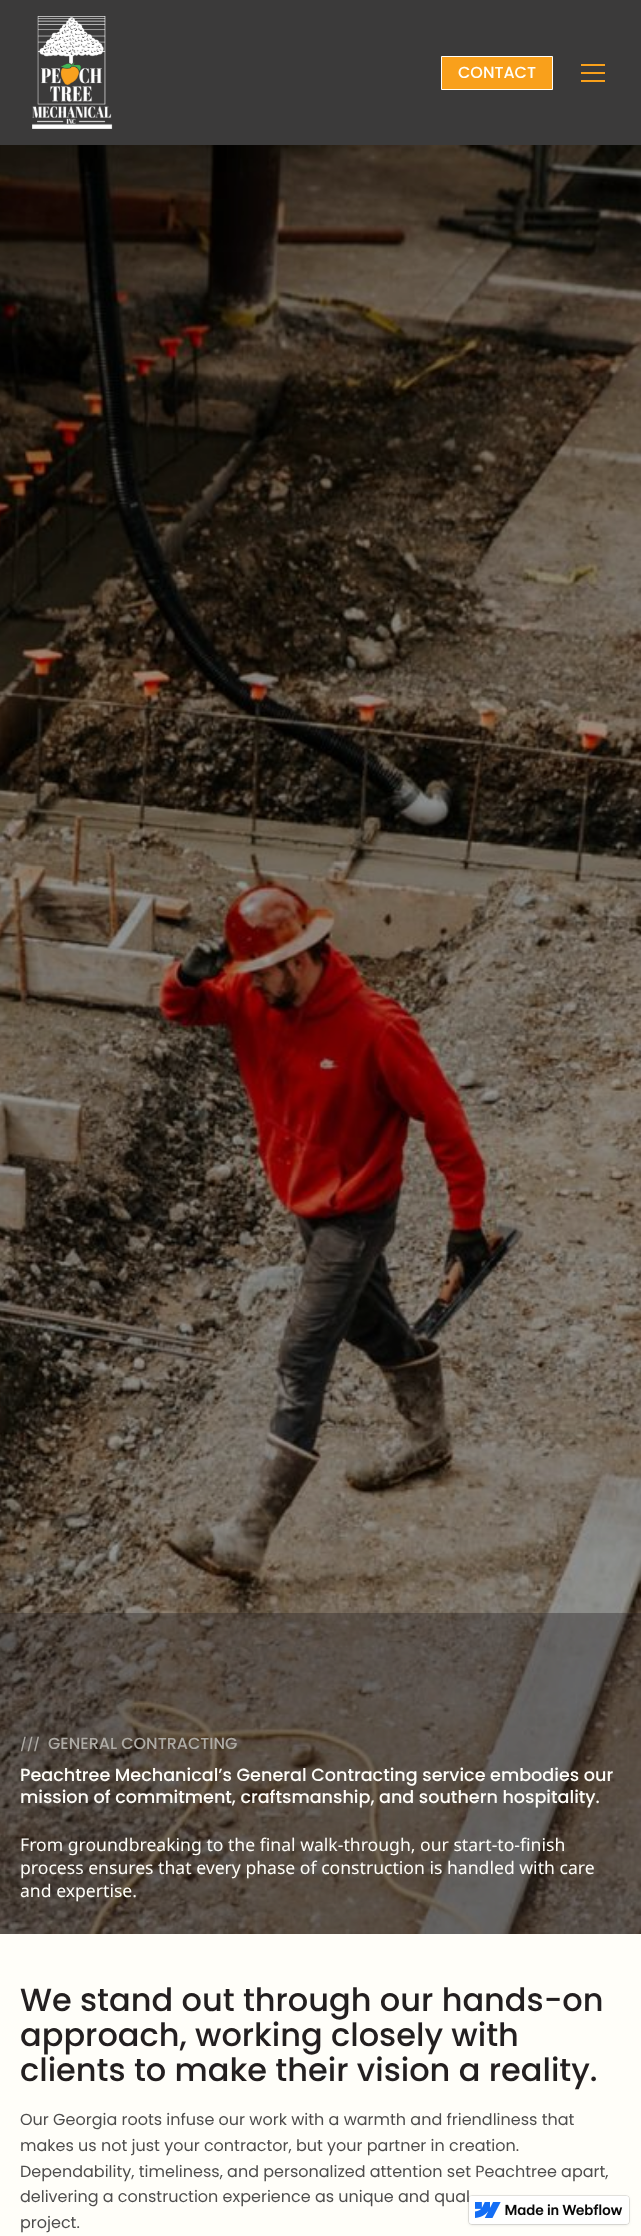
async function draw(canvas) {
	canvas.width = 641;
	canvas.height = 2236;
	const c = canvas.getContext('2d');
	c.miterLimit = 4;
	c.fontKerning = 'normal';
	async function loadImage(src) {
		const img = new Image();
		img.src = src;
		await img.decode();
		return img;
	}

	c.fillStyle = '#fff';
	c.fillRect(0, 0, 641, 2236);
	c.fillStyle = '#3b3a3a';
	c.fillRect(0, 0, 641, 145);
	c.drawImage(await loadImage('img1.png'), 32, 16, 81, 113);
	c.fillStyle = '#f9a01b';
	c.beginPath();
	c.rect(441.5, 56.5, 111, 33);
	c.fill();
	c.strokeStyle = '#fffef9';
	c.stroke();
	c.font = '500 16px Poppins';
	c.fillStyle = '#fffef9';
	c.fillText('CONTACT', 458, 78);
	for (const [x, y, w, h, color] of [
		[581, 64, 24, 2, '#f9a01b'],
		[581, 72, 24, 2, '#f9a01b'],
		[581, 80, 24, 2, '#f9a01b'],
	]) {
		c.fillStyle = color;
		c.fillRect(x, y, w, h);
	}
	c.drawImage(await loadImage('img2.png'), 0, 145, 641, 1789);
	c.fillStyle = '#231f205e';
	c.fillRect(0, 1613, 641, 321);
	c.font = '500 13px Poppins';
	c.fillStyle = '#aeaba5';
	c.fillText('///', 20, 1749);
	c.font = '500 16px Poppins';
	c.fillText('GENERAL CONTRACTING', 48, 1749);
	c.font = '500 17.6px Poppins';
	c.fillStyle = '#fffef9';
	c.fillText('Peachtree Mechanical’s General Contracting service embodies our', 20, 1781);
	c.fillText('mission of commitment, craftsmanship, and southern hospitality.', 20, 1803);
	c.font = '17.6px Noto Sans';
	for (const [text, x, y] of [
		['From groundbreaking to the final walk-through, our start-to-finish', 20, 1851],
		['process ensures that every phase of construction is handled with care', 20, 1874],
		['and expertise.', 20, 1897],
	]) {
		c.fillText(text, x, y);
	}
	c.fillRect(0, 1934, 641, 302);
	c.font = '500 32px Poppins';
	c.fillStyle = '#231f20';
	for (const [text, x, y] of [
		['We stand out through our hands-on', 20, 2011],
		['approach, working closely with', 20, 2046],
		['clients to make their vision a reality.', 20, 2081],
	]) {
		c.fillText(text, x, y);
	}
	c.font = '16px Poppins';
	c.fillStyle = '#4e4d4d';
	for (const [text, x, y] of [
		['Our Georgia roots infuse our work with a warmth and friendliness that', 20, 2125],
		['makes us not just your contractor, but your partner in creation.', 20, 2151],
		['Dependability, timeliness, and personalized attention set Peachtree apart,', 20, 2177],
		['delivering a construction experience as unique and qual', 20, 2202],
		['project.', 20, 2228],
	]) {
		c.fillText(text, x, y);
	}
	c.fillStyle = '#0000001a';
	c.filter = 'blur(1.5px)';
	c.beginPath();
	c.roundRect(469, 2197, 160, 28, 3);
	c.fill();
	c.filter = 'none';
	c.beginPath();
	c.roundRect(468.5, 2195.5, 161, 29, 3.5);
	c.strokeStyle = '#0000001a';
	c.stroke();
	c.fillStyle = '#fff';
	c.beginPath();
	c.roundRect(469, 2196, 160, 28, 3);
	c.fill();
	c.drawImage(await loadImage('img3.png'), 475, 2202, 26, 16);
	c.drawImage(await loadImage('img4.png'), 505, 2204, 118, 12);
}

draw(document.querySelector('canvas'));
